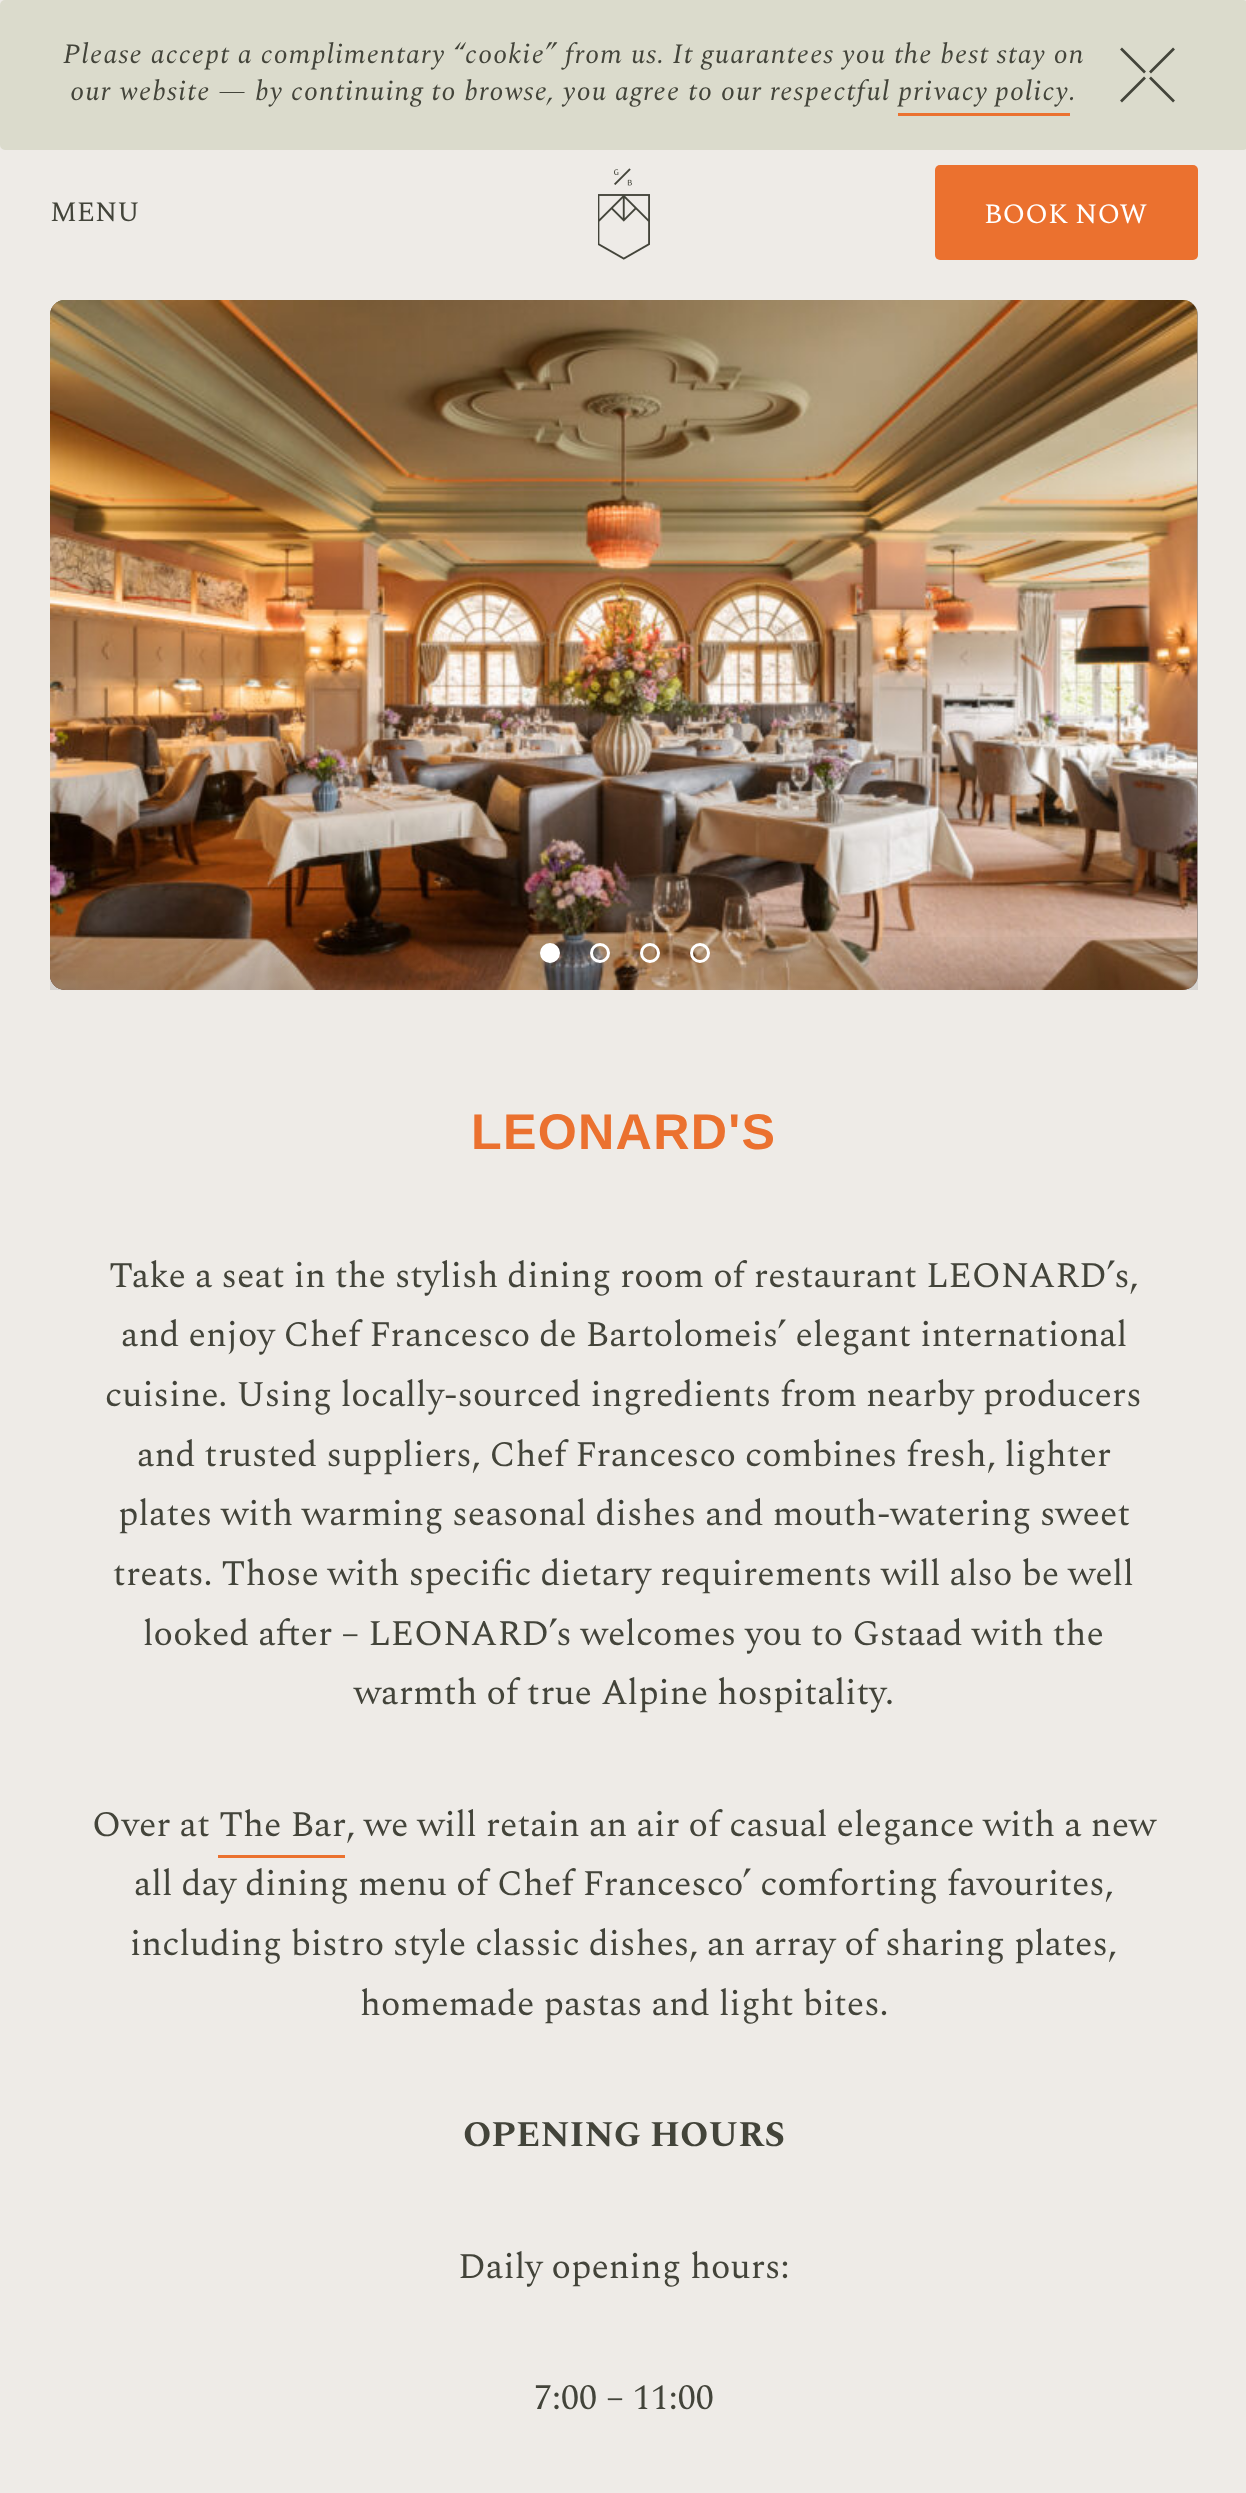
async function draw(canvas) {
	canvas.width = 1246;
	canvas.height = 2493;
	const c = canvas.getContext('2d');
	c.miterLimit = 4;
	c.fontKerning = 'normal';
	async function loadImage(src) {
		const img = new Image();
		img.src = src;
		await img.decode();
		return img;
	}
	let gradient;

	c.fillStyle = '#eeebe7';
	c.fillRect(0, 0, 1246, 2493);
	c.fillStyle = '#dbdbcc';
	c.beginPath();
	c.roundRect(0, 0, 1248, 150, 5);
	c.fill();
	c.letterSpacing = '1.05px';
	c.font = 'italic 28px Spectral';
	c.fillStyle = '#43443a';
	c.fillText('Please accept a complimentary “cookie” from us. It guarantees you the best stay on', 63, 63);
	c.fillText('our website — by continuing to browse, you agree to our respectful', 70, 100);
	c.wordSpacing = '-1px';
	c.fillText('privacy policy', 898, 100);
	c.fillStyle = '#eb712f';
	c.fillRect(898, 113, 172, 3);
	c.wordSpacing = '0px';
	c.fillStyle = '#43443a';
	c.fillText('.', 1069, 100);
	c.beginPath();
	c.moveTo(1145, 72.5);
	c.lineTo(1121, 48.5);
	c.moveTo(1150, 72.5);
	c.lineTo(1174, 48.5);
	c.moveTo(1150, 77.5);
	c.lineTo(1174, 101.5);
	c.moveTo(1145, 77.5);
	c.lineTo(1121, 101.5);
	c.strokeStyle = '#43443a';
	c.lineWidth = 2.7;
	c.stroke();
	c.letterSpacing = '0px';
	c.font = '28px Spectral';
	c.fillText('MENU', 50, 221);
	c.drawImage(await loadImage('img1.png'), 598, 168, 52, 92);
	c.fillStyle = '#eb712f';
	c.beginPath();
	c.roundRect(935, 165, 263, 95, 5);
	c.fill();
	c.fillStyle = '#fff';
	c.fillText('BOOK NOW', 984, 223);
	c.fillStyle = '#999';
	c.beginPath();
	c.roundRect(50, 300, 1148, 690, 15);
	c.fill();
	c.drawImage(await loadImage('img2.png'), 50, 300, 1148, 690);
	c.drawImage(await loadImage('img3.png'), 50, 300, 1148, 690);
	gradient = c.createLinearGradient(624, 990, 624, 923);
	gradient.addColorStop(0, '#0000001a');
	gradient.addColorStop(1, '#00000000');
	c.fillStyle = gradient;
	c.fillRect(50, 937, 1148, 53);
	c.fillStyle = '#fff';
	c.beginPath();
	c.arc(550, 953, 8.5, 0, 2 * Math.PI);
	c.fill();
	c.strokeStyle = '#fff';
	c.lineWidth = 3;
	c.stroke();
	c.beginPath();
	c.arc(600, 953, 8.5, 0, 2 * Math.PI);
	c.stroke();
	c.beginPath();
	c.arc(650, 953, 8.5, 0, 2 * Math.PI);
	c.stroke();
	c.beginPath();
	c.arc(700, 953, 8.5, 0, 2 * Math.PI);
	c.stroke();
	c.letterSpacing = '1.25px';
	c.font = 'bold 50.25px Liberation Sans';
	c.fillStyle = '#eb712f';
	c.fillText('LEONARD\'S', 471, 1149);
	c.letterSpacing = '0px';
	c.font = '35.95px Spectral';
	c.fillStyle = '#43443a';
	for (const [text, x, y] of [
		['Take a seat in the stylish dining room of restaurant LEONARD’s,', 109, 1287],
		['and enjoy Chef Francesco de Bartolomeis’ elegant international', 121, 1346],
		['cuisine. Using locally-sourced ingredients from nearby producers', 105, 1406],
		['and trusted suppliers, Chef Francesco combines fresh, lighter', 137, 1466],
		['plates with warming seasonal dishes and mouth-watering sweet', 118, 1525],
		['treats. Those with specific dietary requirements will also be well', 113, 1585],
		['looked after – LEONARD’s welcomes you to Gstaad with the', 143, 1645],
		['warmth of true Alpine hospitality.', 354, 1704],
		['Over at The Bar', 92, 1836],
		[', we will retain an air of casual elegance with a new', 346, 1836],
	]) {
		c.fillText(text, x, y);
	}
	c.fillStyle = '#eb712f';
	c.fillRect(218, 1855, 127, 3);
	c.fillStyle = '#43443a';
	for (const [text, x, y] of [
		['all day dining menu of Chef Francesco’ comforting favourites,', 134, 1895],
		['including bistro style classic dishes, an array of sharing plates,', 130, 1955],
		['homemade pastas and light bites.', 360, 2015],
	]) {
		c.fillText(text, x, y);
	}
	c.font = 'bold 35.95px Spectral';
	c.fillText('OPENING HOURS', 463, 2146);
	c.font = '35.95px Spectral';
	c.fillText('Daily opening hours:', 458, 2278);
	c.fillText('7:00 – 11:00', 534, 2409);
}

draw(document.querySelector('canvas'));
